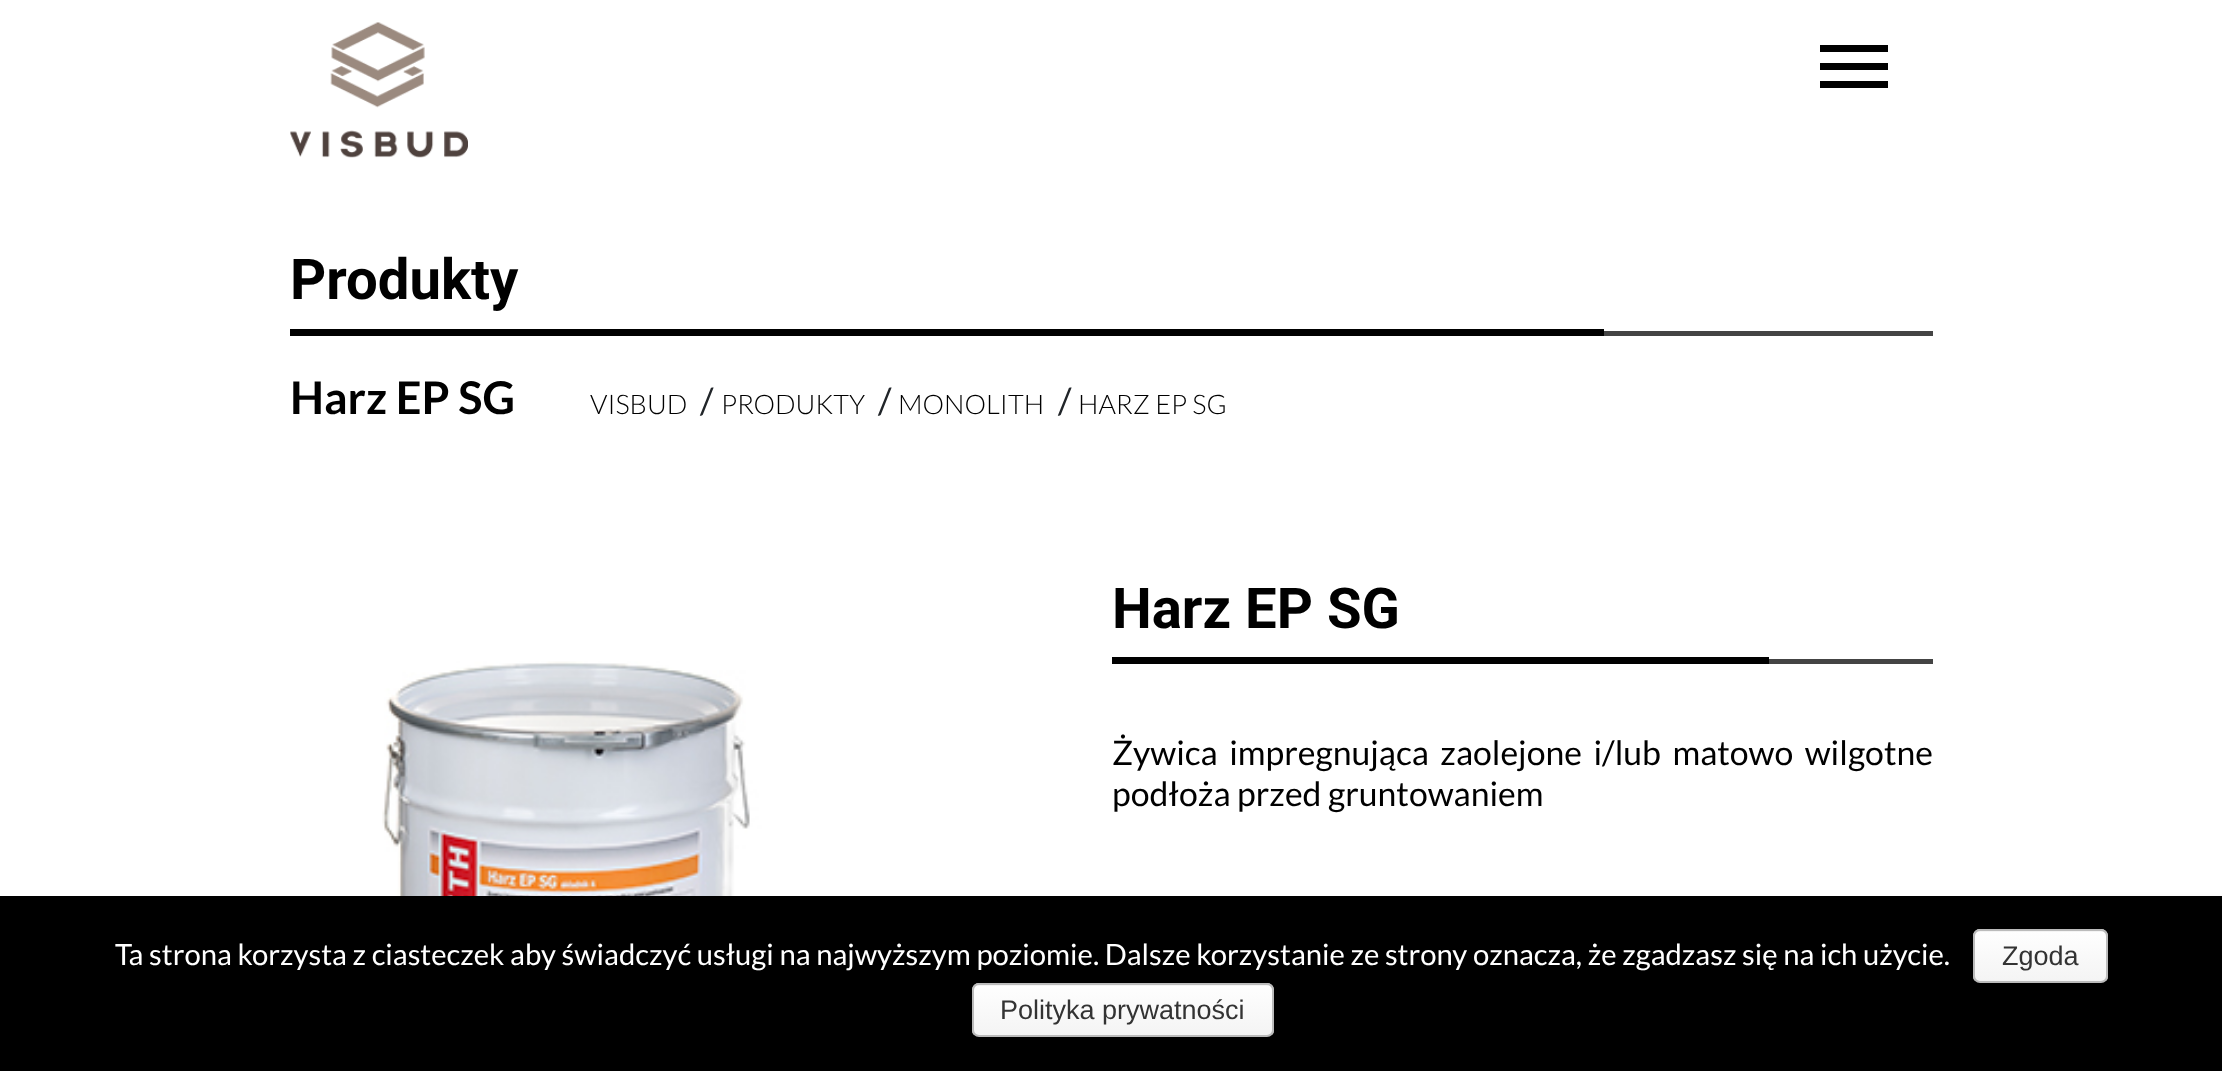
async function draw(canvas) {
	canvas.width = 2222;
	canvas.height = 1071;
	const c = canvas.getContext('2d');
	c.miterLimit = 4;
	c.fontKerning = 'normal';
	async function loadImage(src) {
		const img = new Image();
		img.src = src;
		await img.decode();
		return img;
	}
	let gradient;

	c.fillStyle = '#fff';
	c.fillRect(0, 0, 2222, 1071);
	c.drawImage(await loadImage('img1.png'), 290, 22, 178, 136);
	for (const [x, y, w, h, color] of [
		[1820, 45, 68, 7, '#000'],
		[1820, 63, 68, 7, '#000'],
		[1820, 81, 68, 7, '#000'],
	]) {
		c.fillStyle = color;
		c.fillRect(x, y, w, h);
	}
	c.font = 'bold 56.25px Roboto';
	c.fillText('Produkty', 290, 299);
	c.fillRect(290, 329, 1314, 7);
	c.fillStyle = '#444';
	c.fillRect(1604, 331, 329, 5);
	c.font = 'bold 45px Lato';
	c.fillStyle = '#000';
	c.fillText('Harz EP SG', 290, 414);
	c.font = '300 27px Lato';
	c.fillText('VISBUD', 590, 414);
	c.font = '36px Lato';
	c.fillStyle = '#212529';
	c.fillText('/', 700, 414);
	c.font = '300 27px Lato';
	c.fillStyle = '#000';
	c.fillText('PRODUKTY', 721, 414);
	c.font = '36px Lato';
	c.fillStyle = '#212529';
	c.fillText('/', 878, 414);
	c.font = '300 27px Lato';
	c.fillStyle = '#000';
	c.fillText('MONOLITH', 898, 414);
	c.font = '36px Lato';
	c.fillStyle = '#212529';
	c.fillText('/', 1058, 414);
	c.font = '300 27px Lato';
	c.fillStyle = '#000';
	c.fillText('HARZ EP SG', 1078, 414);
	c.drawImage(await loadImage('img2.png'), 382, 661, 634, 235);
	c.font = 'bold 56.25px Roboto';
	c.fillText('Harz EP SG', 1112, 628);
	c.fillRect(1112, 657, 657, 7);
	c.fillStyle = '#444';
	c.fillRect(1769, 659, 164, 5);
	c.wordSpacing = '5px';
	c.font = '33.75px Lato';
	c.fillStyle = '#000';
	c.fillText('Żywica impregnująca zaolejone i/lub matowo wilgotne', 1112, 765);
	c.wordSpacing = '0px';
	c.fillText('podłoża przed gruntowaniem', 1112, 806);
	c.fillStyle = '#808080';
	c.filter = 'blur(5.5px)';
	c.beginPath();
	c.roundRect(2066, 905, 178, 135, 5);
	c.fill();
	c.filter = 'none';
	c.fillStyle = '#000';
	c.fillRect(0, 896, 2222, 175);
	c.font = '29.25px Lato';
	c.fillStyle = '#fff';
	c.fillText('Ta strona korzysta z ciasteczek aby świadczyć usługi na najwyższym poziomie. Dalsze korzystanie ze strony oznacza, że zgadzasz się na ich użycie.', 115, 965);
	c.save();
	c.beginPath();
	c.roundRect(1973, 929, 135, 54, 7);
	c.clip();
	gradient = c.createLinearGradient(2041, 882, 2041, 932);
	gradient.addColorStop(0, '#fefefe');
	gradient.addColorStop(1, '#f4f4f4');
	c.fillStyle = gradient;
	c.fillRect(1973, 929, 135, 3);
	gradient = c.createLinearGradient(2041, 932, 2041, 981);
	gradient.addColorStop(0, '#fefefe');
	gradient.addColorStop(1, '#f4f4f4');
	c.fillStyle = gradient;
	c.fillRect(1973, 932, 135, 49);
	c.restore();
	c.beginPath();
	c.roundRect(1974, 930, 133, 52, 6);
	c.strokeStyle = '#bbb';
	c.lineWidth = 2;
	c.stroke();
	c.font = '27px Liberation Sans';
	c.fillStyle = '#333';
	c.fillText('Zgoda', 2002, 965);
	c.save();
	c.beginPath();
	c.roundRect(972, 983, 302, 54, 7);
	c.clip();
	gradient = c.createLinearGradient(1123, 936, 1123, 986);
	gradient.addColorStop(0, '#fefefe');
	gradient.addColorStop(1, '#f4f4f4');
	c.fillStyle = gradient;
	c.fillRect(972, 983, 302, 3);
	gradient = c.createLinearGradient(1123, 986, 1123, 1035);
	gradient.addColorStop(0, '#fefefe');
	gradient.addColorStop(1, '#f4f4f4');
	c.fillStyle = gradient;
	c.fillRect(972, 986, 302, 49);
	c.restore();
	c.beginPath();
	c.roundRect(973, 984, 300, 52, 6);
	c.stroke();
	c.fillText('Polityka prywatności', 1000, 1019);
}

draw(document.querySelector('canvas'));
